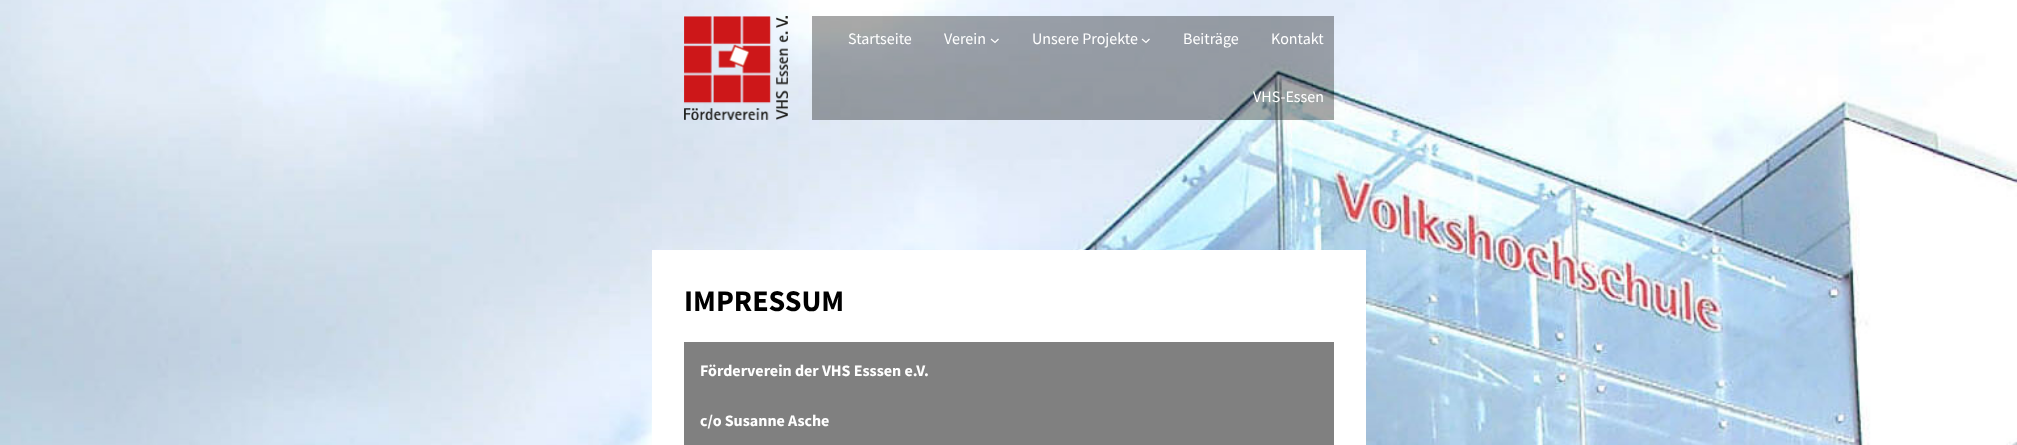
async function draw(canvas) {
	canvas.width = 2017;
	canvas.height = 445;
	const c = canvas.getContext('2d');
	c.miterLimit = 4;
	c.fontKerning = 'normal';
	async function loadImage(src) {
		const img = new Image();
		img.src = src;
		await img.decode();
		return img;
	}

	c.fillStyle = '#fff';
	c.fillRect(0, 0, 2017, 445);
	c.drawImage(await loadImage('img1.png'), 0, 0, 2017, 445);
	c.drawImage(await loadImage('img2.png'), 684, 16, 104, 104);
	c.fillStyle = '#00000057';
	c.fillRect(812, 16, 522, 104);
	c.font = '16px Source Sans Pro';
	c.fillStyle = '#fff';
	c.fillText('Startseite', 848, 44);
	c.fillText('Verein', 944, 44);
	c.beginPath();
	c.moveTo(991, 39);
	c.lineTo(995, 42.5);
	c.lineTo(998.5, 39);
	c.strokeStyle = '#fff';
	c.lineWidth = 1.2;
	c.stroke();
	c.fillText('Unsere Projekte', 1032, 44);
	c.beginPath();
	c.moveTo(1142, 39);
	c.lineTo(1146, 42.5);
	c.lineTo(1149.5, 39);
	c.stroke();
	for (const [text, x, y] of [
		['Beiträge', 1183, 44],
		['Kontakt', 1271, 44],
		['VHS-Essen', 1253, 102],
	]) {
		c.fillText(text, x, y);
	}
	c.fillRect(652, 250, 714, 195);
	c.font = 'bold 30px Source Sans Pro';
	c.fillStyle = '#000';
	c.fillText('IMPRESSUM', 684, 311);
	c.fillStyle = '#808080';
	c.fillRect(684, 342, 650, 103);
	c.font = 'bold 16px Source Sans Pro';
	c.fillStyle = '#fff';
	c.fillText('Förderverein der VHS Esssen e.V.', 700, 376);
	c.fillText('c/o Susanne Asche', 700, 426);
}

draw(document.querySelector('canvas'));
